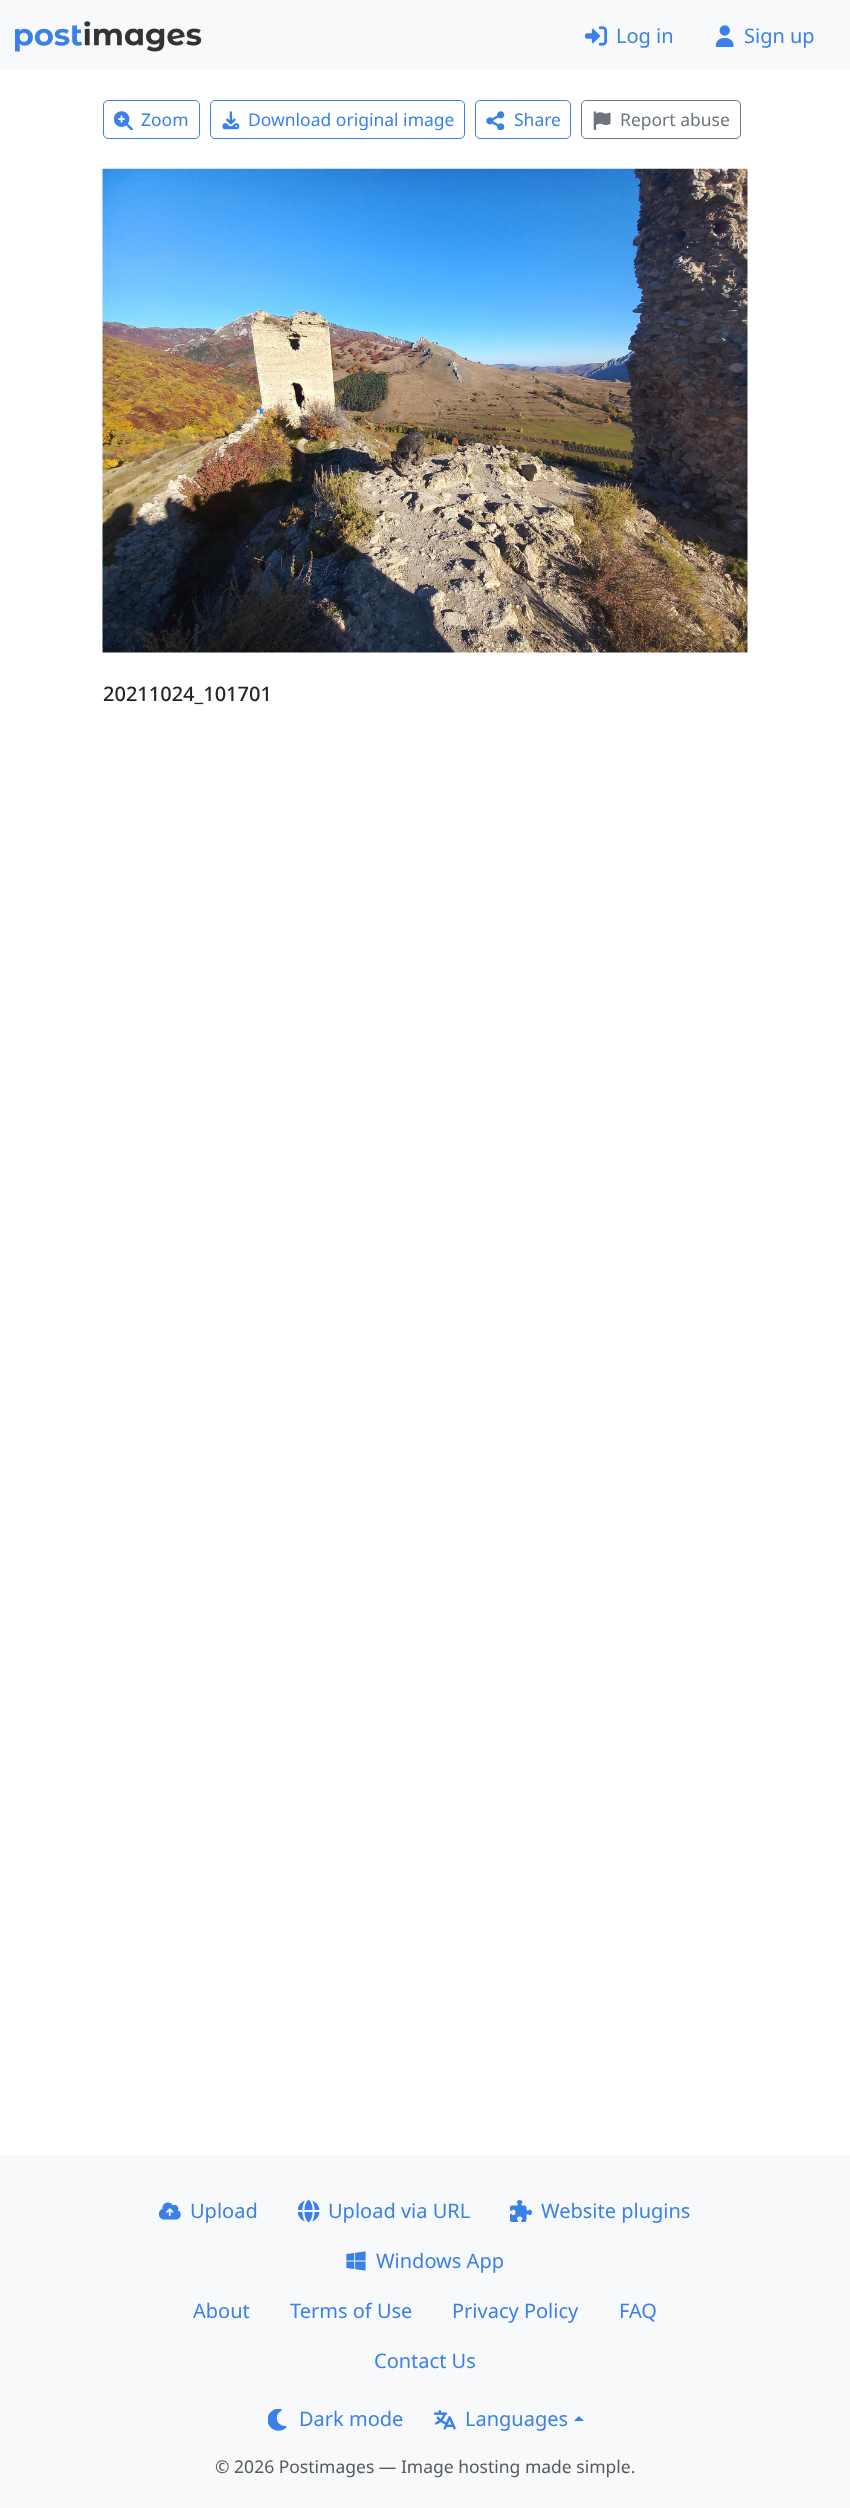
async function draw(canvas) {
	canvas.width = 850;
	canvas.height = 2508;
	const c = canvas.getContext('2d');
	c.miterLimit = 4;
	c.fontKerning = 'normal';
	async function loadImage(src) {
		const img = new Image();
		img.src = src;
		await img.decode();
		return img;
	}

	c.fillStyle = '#fff';
	c.fillRect(0, 0, 850, 2508);
	c.fillStyle = '#f8f9fa';
	c.fillRect(0, 0, 850, 70);
	c.drawImage(await loadImage('img1.png'), 15, 21, 187, 31);
	c.drawImage(await loadImage('img2.png'), 585, 26, 22, 20);
	c.font = '20px Noto Sans';
	c.fillStyle = '#3a80ea';
	c.fillText('Log in', 616, 43);
	c.drawImage(await loadImage('img3.png'), 715, 25, 19, 22);
	c.fillText('Sign up', 744, 43);
	c.beginPath();
	c.roundRect(103.5, 100.5, 96, 38, 4.5);
	c.strokeStyle = '#3a80ea';
	c.stroke();
	c.drawImage(await loadImage('img4.png'), 114, 111, 19, 19);
	c.font = '17.5px Noto Sans';
	c.fillText('Zoom', 141, 126);
	c.beginPath();
	c.roundRect(210.5, 100.5, 254, 38, 4.5);
	c.stroke();
	c.drawImage(await loadImage('img5.png'), 222, 111, 18, 19);
	c.fillText('Download original image', 248, 126);
	c.beginPath();
	c.roundRect(475.5, 100.5, 95, 38, 4.5);
	c.stroke();
	c.drawImage(await loadImage('img6.png'), 486, 111, 19, 19);
	c.fillText('Share', 514, 126);
	c.beginPath();
	c.roundRect(581.5, 100.5, 159, 38, 4.5);
	c.strokeStyle = '#6c757d';
	c.stroke();
	c.drawImage(await loadImage('img7.png'), 593, 111, 18, 19);
	c.fillStyle = '#6c757d';
	c.fillText('Report abuse', 620, 126);
	c.drawImage(await loadImage('img8.png'), 102, 168, 646, 485);
	c.font = '500 20px Noto Sans';
	c.fillStyle = '#212529';
	c.fillText('20211024_101701', 103, 701);
	c.fillStyle = '#f8f9fa';
	c.fillRect(0, 2155, 850, 353);
	c.drawImage(await loadImage('img9.png'), 159, 2202, 22, 18);
	c.font = '20px Noto Sans';
	c.fillStyle = '#3a80ea';
	c.fillText('Upload', 190, 2218);
	c.drawImage(await loadImage('img10.png'), 298, 2200, 22, 22);
	c.fillText('Upload via URL', 328, 2218);
	c.drawImage(await loadImage('img11.png'), 510, 2200, 22, 22);
	c.fillText('Website plugins', 541, 2218);
	c.drawImage(await loadImage('img12.png'), 346, 2251, 20, 20);
	for (const [text, x, y] of [
		['Windows App', 376, 2268],
		['About', 193, 2318],
		['Terms of Use', 290, 2318],
		['Privacy Policy', 452, 2318],
		['FAQ', 619, 2318],
		['Contact Us', 374, 2368],
	]) {
		c.fillText(text, x, y);
	}
	c.drawImage(await loadImage('img13.png'), 268, 2409, 19, 22);
	c.fillText('Dark mode', 299, 2426);
	c.drawImage(await loadImage('img14.png'), 434, 2410, 22, 20);
	c.fillText('Languages', 465, 2426);
	c.beginPath();
	c.moveTo(584, 2421);
	c.lineTo(574, 2421);
	c.lineTo(579, 2416);
	c.closePath();
	c.fill();
	c.font = '17.5px Noto Sans';
	c.fillStyle = '#575a5d';
	c.fillText('© 2026 Postimages — Image hosting made simple.', 215, 2473);
}

draw(document.querySelector('canvas'));
